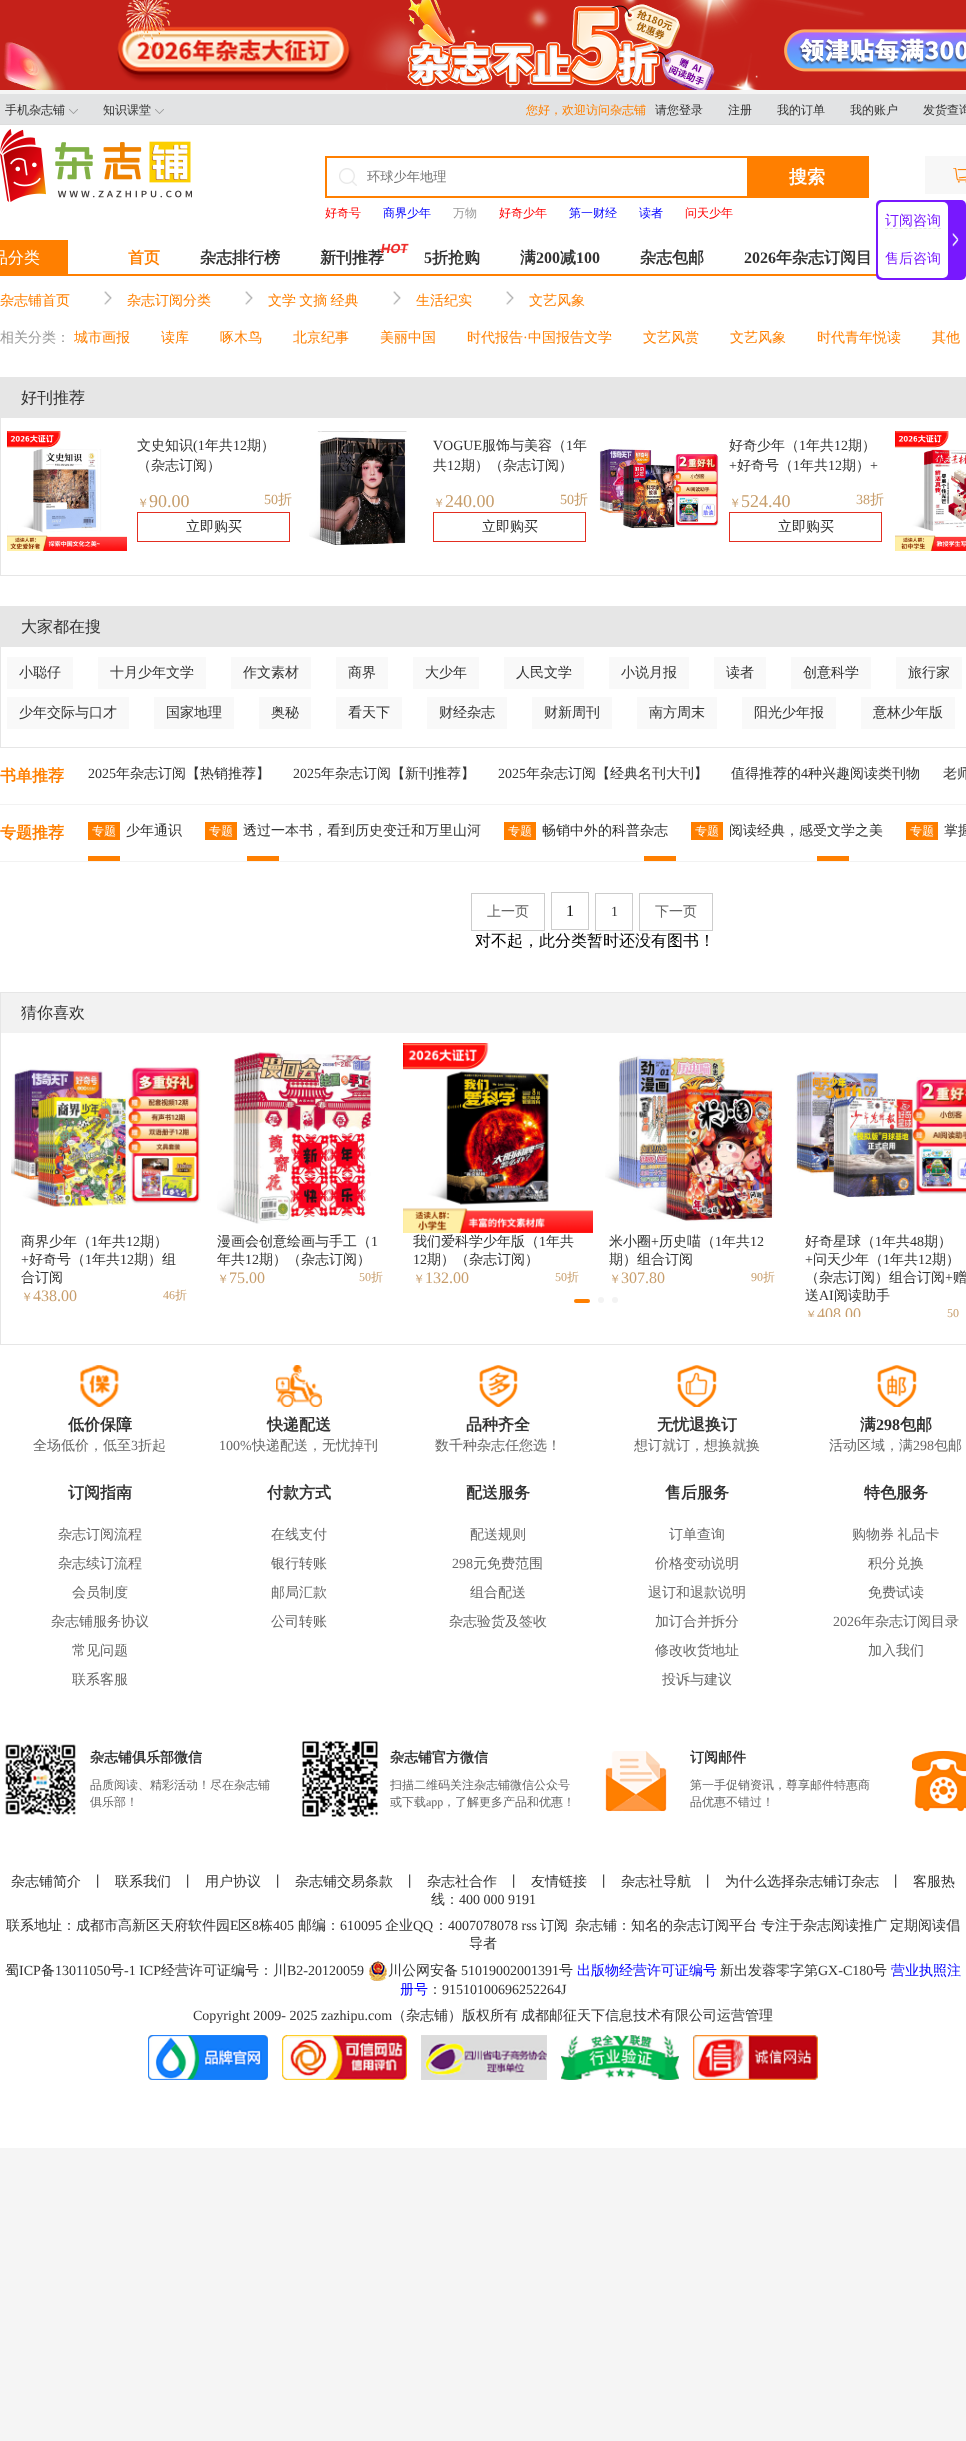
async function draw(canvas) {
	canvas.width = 966;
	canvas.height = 2441;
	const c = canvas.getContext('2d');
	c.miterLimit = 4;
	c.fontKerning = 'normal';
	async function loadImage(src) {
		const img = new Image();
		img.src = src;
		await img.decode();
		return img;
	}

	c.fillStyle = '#f5f5f5';
	c.fillRect(0, 0, 966, 2441);
	c.drawImage(await loadImage('img1.png'), 0, 0, 966, 90);
	c.fillStyle = '#e2e3e4';
	c.fillRect(0, 94, 966, 30);
	c.fillStyle = '#ddd';
	c.fillRect(0, 124, 966, 1);
	c.font = '500 12px WenQuanYi Zen Hei';
	c.fillStyle = '#333';
	c.fillText('手机杂志铺', 5, 114);
	c.drawImage(await loadImage('img2.png'), 69, 109, 9, 5);
	c.fillText('知识课堂', 103, 114);
	c.drawImage(await loadImage('img2.png'), 155, 109, 9, 5);
	c.fillStyle = '#ff7f00';
	c.fillText('您好，欢迎访问杂志铺', 526, 114);
	c.fillStyle = '#333';
	for (const [text, x, y] of [
		['请您登录', 655, 114],
		['注册', 728, 114],
		['我的订单', 777, 114],
		['我的账户', 850, 114],
		['发货查询', 923, 114],
	]) {
		c.fillText(text, x, y);
	}
	c.fillStyle = '#fff';
	c.fillRect(0, 125, 966, 149);
	c.fillStyle = '#ff7f00';
	c.fillRect(68, 274, 898, 2);
	c.drawImage(await loadImage('img3.png'), 0, 129, 192, 73);
	c.strokeStyle = '#ff7f00';
	c.lineWidth = 2;
	c.strokeRect(326, 157, 542, 40);
	c.drawImage(await loadImage('img4.png'), 339, 168, 18, 18);
	c.font = '500 13.25px WenQuanYi Zen Hei';
	c.fillStyle = '#757575';
	c.fillText('环球少年地理', 367, 181);
	c.fillStyle = '#ff7f00';
	c.fillRect(747, 158, 120, 38);
	c.font = 'bold 18px WenQuanYi Zen Hei';
	c.fillStyle = '#fff';
	c.fillText('搜索', 789, 183);
	c.fillStyle = '#f7f7f7';
	c.fillRect(925, 156, 41, 38);
	c.drawImage(await loadImage('img5.png'), 953, 168, 13, 15);
	c.font = '500 12px WenQuanYi Zen Hei';
	c.fillStyle = '#f00';
	c.fillText('好奇号', 325, 217);
	c.fillStyle = '#00f';
	c.fillText('商界少年', 383, 217);
	c.fillStyle = '#999';
	c.fillText('万物', 453, 217);
	c.fillStyle = '#f00';
	c.fillText('好奇少年', 499, 217);
	c.fillStyle = '#00f';
	c.fillText('第一财经', 569, 217);
	c.fillText('读者', 639, 217);
	c.fillStyle = '#f00';
	c.fillText('问天少年', 685, 217);
	c.fillStyle = '#ff7f00';
	c.fillRect(0, 240, 68, 36);
	c.font = '500 16px WenQuanYi Zen Hei';
	c.fillStyle = '#fff';
	c.fillText('品分类', -8, 263);
	c.font = 'bold 16px WenQuanYi Zen Hei';
	c.fillStyle = '#ff7f00';
	c.fillText('首页', 128, 263);
	c.fillStyle = '#333';
	c.fillText('杂志排行榜', 200, 263);
	c.fillText('新刊推荐', 320, 263);
	c.drawImage(await loadImage('img6.png'), 380, 243, 29, 11);
	c.font = 'bold 16px Liberation Serif';
	c.fillText('5', 424, 263);
	c.font = 'bold 16px WenQuanYi Zen Hei';
	c.fillText('折抢购', 432, 263);
	c.fillText('满', 520, 263);
	c.font = 'bold 16px Liberation Serif';
	c.fillText('200', 536, 263);
	c.font = 'bold 16px WenQuanYi Zen Hei';
	c.fillText('减', 560, 263);
	c.font = 'bold 16px Liberation Serif';
	c.fillText('100', 576, 263);
	c.font = 'bold 16px WenQuanYi Zen Hei';
	c.fillText('杂志包邮', 640, 263);
	c.font = 'bold 16px Liberation Serif';
	c.fillText('2026', 744, 263);
	c.font = 'bold 16px WenQuanYi Zen Hei';
	c.fillText('年杂志订阅目', 776, 263);
	c.fillStyle = '#fff';
	c.fillRect(0, 276, 966, 1872);
	c.fillStyle = '#7818fe';
	c.beginPath();
	c.roundRect(876, 200, 90, 80, 5);
	c.fill();
	c.fillStyle = '#fff';
	c.beginPath();
	c.roundRect(878, 202, 70, 76, 5);
	c.fill();
	c.font = '500 14px WenQuanYi Zen Hei';
	c.fillStyle = '#7818fe';
	c.fillText('订阅咨询', 885, 225);
	c.beginPath();
	c.moveTo(885, 228.5);
	c.lineTo(941, 228.5);
	c.strokeStyle = '#e8e8e8';
	c.lineWidth = 1;
	c.setLineDash([3, 1.82]);
	c.stroke();
	c.fillText('售后咨询', 885, 263);
	c.drawImage(await loadImage('img7.png'), 952, 233, 7, 14);
	c.fillStyle = '#ff7f00';
	c.fillText('杂志铺首页', 0, 305);
	c.drawImage(await loadImage('img8.png'), 104, 291, 8, 14);
	c.fillText('杂志订阅分类', 127, 305);
	c.drawImage(await loadImage('img8.png'), 245, 291, 8, 14);
	c.wordSpacing = '-1px';
	c.fillText('文学 文摘 经典', 268, 305);
	c.drawImage(await loadImage('img8.png'), 393, 291, 8, 14);
	c.wordSpacing = '0px';
	c.fillText('生活纪实', 416, 305);
	c.drawImage(await loadImage('img8.png'), 506, 291, 8, 14);
	c.fillText('文艺风象', 529, 305);
	c.fillStyle = '#999';
	c.fillText('相关分类：', 0, 342);
	c.fillStyle = '#ff7f00';
	for (const [text, x, y] of [
		['城市画报', 74, 342],
		['读库', 161, 342],
		['啄木鸟', 220, 342],
		['北京纪事', 293, 342],
		['美丽中国', 380, 342],
		['时代报告', 467, 342],
	]) {
		c.fillText(text, x, y);
	}
	c.font = '14px Liberation Serif';
	c.fillText('·', 523, 342);
	c.font = '500 14px WenQuanYi Zen Hei';
	for (const [text, x, y] of [
		['中国报告文学', 528, 342],
		['文艺风赏', 643, 342],
		['文艺风象', 730, 342],
		['时代青年悦读', 817, 342],
		['其他', 932, 342],
	]) {
		c.fillText(text, x, y);
	}
	c.strokeStyle = '#e6e6e6';
	c.setLineDash([]);
	c.strokeRect(0.5, 377.5, 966, 198);
	c.fillStyle = '#e6e6e6';
	c.fillRect(1, 378, 965, 40);
	c.font = '500 16px WenQuanYi Zen Hei';
	c.fillStyle = '#333';
	c.fillText('好刊推荐', 21, 403);
	c.drawImage(await loadImage('img9.png'), 7, 431, 120, 120);
	c.font = '500 14px WenQuanYi Zen Hei';
	c.fillText('文史知识', 137, 450);
	c.font = '14px Liberation Serif';
	c.fillText('(1', 193, 450);
	c.font = '500 14px WenQuanYi Zen Hei';
	c.fillText('年共', 205, 450);
	c.font = '14px Liberation Serif';
	c.fillText('12', 233, 450);
	c.font = '500 14px WenQuanYi Zen Hei';
	c.fillText('期）', 247, 450);
	c.fillText('（杂志订阅）', 137, 470);
	c.font = '500 12px WenQuanYi Zen Hei';
	c.fillStyle = '#c79d6b';
	c.fillText('￥', 137, 507);
	c.font = '18px Liberation Serif';
	c.fillText('90.00', 149, 507);
	c.font = '14px Liberation Serif';
	c.fillText('50', 264, 504);
	c.font = '500 14px WenQuanYi Zen Hei';
	c.fillText('折', 278, 504);
	c.strokeStyle = '#e32e21';
	c.strokeRect(137.5, 512.5, 152, 29);
	c.fillStyle = '#333';
	c.fillText('立即购买', 186, 531);
	c.drawImage(await loadImage('img10.png'), 309, 431, 98, 114);
	c.font = '14px Liberation Serif';
	c.fillText('VOGUE', 433, 450);
	c.font = '500 14px WenQuanYi Zen Hei';
	c.fillText('服饰与美容（', 482, 450);
	c.font = '14px Liberation Serif';
	c.fillText('1', 566, 450);
	c.font = '500 14px WenQuanYi Zen Hei';
	c.fillText('年', 573, 450);
	c.fillText('共', 433, 470);
	c.font = '14px Liberation Serif';
	c.fillText('12', 447, 470);
	c.font = '500 14px WenQuanYi Zen Hei';
	c.fillText('期）（杂志订阅）', 461, 470);
	c.font = '500 12px WenQuanYi Zen Hei';
	c.fillStyle = '#c79d6b';
	c.fillText('￥', 433, 507);
	c.font = '18px Liberation Serif';
	c.fillText('240.00', 445, 507);
	c.font = '14px Liberation Serif';
	c.fillText('50', 560, 504);
	c.font = '500 14px WenQuanYi Zen Hei';
	c.fillText('折', 574, 504);
	c.strokeRect(433.5, 512.5, 152, 29);
	c.fillStyle = '#333';
	c.fillText('立即购买', 482, 531);
	c.drawImage(await loadImage('img11.png'), 599, 448, 120, 81);
	c.fillText('好奇少年（', 729, 450);
	c.font = '14px Liberation Serif';
	c.fillText('1', 799, 450);
	c.font = '500 14px WenQuanYi Zen Hei';
	c.fillText('年共', 806, 450);
	c.font = '14px Liberation Serif';
	c.fillText('12', 834, 450);
	c.font = '500 14px WenQuanYi Zen Hei';
	c.fillText('期）', 848, 450);
	c.font = '14px Liberation Serif';
	c.fillText('+', 729, 470);
	c.font = '500 14px WenQuanYi Zen Hei';
	c.fillText('好奇号（', 737, 470);
	c.font = '14px Liberation Serif';
	c.fillText('1', 793, 470);
	c.font = '500 14px WenQuanYi Zen Hei';
	c.fillText('年共', 800, 470);
	c.font = '14px Liberation Serif';
	c.fillText('12', 828, 470);
	c.font = '500 14px WenQuanYi Zen Hei';
	c.fillText('期）', 842, 470);
	c.font = '14px Liberation Serif';
	c.fillText('+', 870, 470);
	c.font = '500 12px WenQuanYi Zen Hei';
	c.fillStyle = '#c79d6b';
	c.fillText('￥', 729, 507);
	c.font = '18px Liberation Serif';
	c.fillText('524.40', 741, 507);
	c.font = '14px Liberation Serif';
	c.fillText('38', 856, 504);
	c.font = '500 14px WenQuanYi Zen Hei';
	c.fillText('折', 870, 504);
	c.strokeRect(729.5, 512.5, 152, 29);
	c.fillStyle = '#333';
	c.fillText('立即购买', 778, 531);
	c.drawImage(await loadImage('img12.png'), 895, 431, 71, 120);
	c.strokeStyle = '#e6e6e6';
	c.strokeRect(0.5, 606.5, 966, 141);
	c.fillStyle = '#e6e6e6';
	c.fillRect(1, 607, 965, 40);
	c.font = '500 16px WenQuanYi Zen Hei';
	c.fillStyle = '#333';
	c.fillText('大家都在搜', 21, 632);
	c.fillStyle = '#f9f9f9';
	c.fillRect(7, 657, 66, 32);
	c.font = '500 14px WenQuanYi Zen Hei';
	c.fillStyle = '#333';
	c.fillText('小聪仔', 19, 677);
	c.fillStyle = '#f9f9f9';
	c.fillRect(98, 657, 108, 32);
	c.fillStyle = '#333';
	c.fillText('十月少年文学', 110, 677);
	c.fillStyle = '#f9f9f9';
	c.fillRect(231, 657, 80, 32);
	c.fillStyle = '#333';
	c.fillText('作文素材', 243, 677);
	c.fillStyle = '#f9f9f9';
	c.fillRect(336, 657, 52, 32);
	c.fillStyle = '#333';
	c.fillText('商界', 348, 677);
	c.fillStyle = '#f9f9f9';
	c.fillRect(413, 657, 66, 32);
	c.fillStyle = '#333';
	c.fillText('大少年', 425, 677);
	c.fillStyle = '#f9f9f9';
	c.fillRect(504, 657, 80, 32);
	c.fillStyle = '#333';
	c.fillText('人民文学', 516, 677);
	c.fillStyle = '#f9f9f9';
	c.fillRect(609, 657, 80, 32);
	c.fillStyle = '#333';
	c.fillText('小说月报', 621, 677);
	c.fillStyle = '#f9f9f9';
	c.fillRect(714, 657, 52, 32);
	c.fillStyle = '#333';
	c.fillText('读者', 726, 677);
	c.fillStyle = '#f9f9f9';
	c.fillRect(791, 657, 80, 32);
	c.fillStyle = '#333';
	c.fillText('创意科学', 803, 677);
	c.fillStyle = '#f9f9f9';
	c.fillRect(896, 657, 66, 32);
	c.fillStyle = '#333';
	c.fillText('旅行家', 908, 677);
	c.fillStyle = '#f9f9f9';
	c.fillRect(7, 697, 122, 32);
	c.fillStyle = '#333';
	c.fillText('少年交际与口才', 19, 717);
	c.fillStyle = '#f9f9f9';
	c.fillRect(154, 697, 80, 32);
	c.fillStyle = '#333';
	c.fillText('国家地理', 166, 717);
	c.fillStyle = '#f9f9f9';
	c.fillRect(259, 697, 52, 32);
	c.fillStyle = '#333';
	c.fillText('奥秘', 271, 717);
	c.fillStyle = '#f9f9f9';
	c.fillRect(336, 697, 66, 32);
	c.fillStyle = '#333';
	c.fillText('看天下', 348, 717);
	c.fillStyle = '#f9f9f9';
	c.fillRect(427, 697, 80, 32);
	c.fillStyle = '#333';
	c.fillText('财经杂志', 439, 717);
	c.fillStyle = '#f9f9f9';
	c.fillRect(532, 697, 80, 32);
	c.fillStyle = '#333';
	c.fillText('财新周刊', 544, 717);
	c.fillStyle = '#f9f9f9';
	c.fillRect(637, 697, 80, 32);
	c.fillStyle = '#333';
	c.fillText('南方周末', 649, 717);
	c.fillStyle = '#f9f9f9';
	c.fillRect(742, 697, 94, 32);
	c.fillStyle = '#333';
	c.fillText('阳光少年报', 754, 717);
	c.fillStyle = '#f9f9f9';
	c.fillRect(861, 697, 94, 32);
	c.fillStyle = '#333';
	c.fillText('意林少年版', 873, 717);
	c.fillStyle = '#f2f2f2';
	c.fillRect(0, 804, 966, 1);
	c.font = 'bold 16px WenQuanYi Zen Hei';
	c.fillStyle = '#ff7f00';
	c.fillText('书单推荐', 0, 781);
	c.font = '14px Liberation Serif';
	c.fillStyle = '#333';
	c.fillText('2025', 88, 778);
	c.font = '500 14px WenQuanYi Zen Hei';
	c.fillText('年杂志订阅【热销推荐】', 116, 778);
	c.font = '14px Liberation Serif';
	c.fillText('2025', 293, 778);
	c.font = '500 14px WenQuanYi Zen Hei';
	c.fillText('年杂志订阅【新刊推荐】', 321, 778);
	c.font = '14px Liberation Serif';
	c.fillText('2025', 498, 778);
	c.font = '500 14px WenQuanYi Zen Hei';
	c.fillText('年杂志订阅【经典名刊大刊】', 526, 778);
	c.fillText('值得推荐的', 731, 778);
	c.font = '14px Liberation Serif';
	c.fillText('4', 801, 778);
	c.font = '500 14px WenQuanYi Zen Hei';
	c.fillText('种兴趣阅读类刊物', 808, 778);
	c.fillText('老师', 943, 778);
	c.fillStyle = '#f2f2f2';
	c.fillRect(0, 861, 966, 1);
	c.font = 'bold 16px WenQuanYi Zen Hei';
	c.fillStyle = '#ff7f00';
	c.fillText('专题推荐', 0, 838);
	c.fillRect(88, 822, 32, 18);
	c.font = '500 12px WenQuanYi Zen Hei';
	c.fillStyle = '#fff';
	c.fillText('专题', 92, 835);
	c.font = '500 14px WenQuanYi Zen Hei';
	c.fillStyle = '#333';
	c.fillText('少年通识', 126, 835);
	c.fillStyle = '#ff7f00';
	c.fillRect(205, 822, 32, 18);
	c.font = '500 12px WenQuanYi Zen Hei';
	c.fillStyle = '#fff';
	c.fillText('专题', 209, 835);
	c.font = '500 14px WenQuanYi Zen Hei';
	c.fillStyle = '#333';
	c.fillText('透过一本书，看到历史变迁和万里山河', 243, 835);
	c.fillStyle = '#ff7f00';
	c.fillRect(504, 822, 32, 18);
	c.font = '500 12px WenQuanYi Zen Hei';
	c.fillStyle = '#fff';
	c.fillText('专题', 508, 835);
	c.font = '500 14px WenQuanYi Zen Hei';
	c.fillStyle = '#333';
	c.fillText('畅销中外的科普杂志', 542, 835);
	c.fillStyle = '#ff7f00';
	c.fillRect(691, 822, 32, 18);
	c.font = '500 12px WenQuanYi Zen Hei';
	c.fillStyle = '#fff';
	c.fillText('专题', 695, 835);
	c.font = '500 14px WenQuanYi Zen Hei';
	c.fillStyle = '#333';
	c.fillText('阅读经典，感受文学之美', 729, 835);
	c.fillStyle = '#ff7f00';
	c.fillRect(906, 822, 32, 18);
	c.font = '500 12px WenQuanYi Zen Hei';
	c.fillStyle = '#fff';
	c.fillText('专题', 910, 835);
	c.font = '500 14px WenQuanYi Zen Hei';
	c.fillStyle = '#333';
	c.fillText('掌握', 944, 835);
	for (const [x, y, w, h, color] of [
		[88, 856, 32, 5, '#ff7f00'],
		[247, 856, 32, 5, '#ff7f00'],
		[644, 856, 32, 5, '#ff7f00'],
		[817, 856, 32, 5, '#ff7f00'],
	]) {
		c.fillStyle = color;
		c.fillRect(x, y, w, h);
	}
	c.strokeStyle = '#ccc';
	c.strokeRect(471.5, 893.5, 73, 37);
	c.fillStyle = '#666';
	c.fillText('上一页', 487, 916);
	c.strokeRect(551.5, 892.5, 37, 37);
	c.font = '16px Liberation Serif';
	c.fillStyle = '#000';
	c.fillText('1', 566, 916);
	c.strokeRect(595.5, 893.5, 37, 37);
	c.font = '14px Liberation Serif';
	c.fillStyle = '#333';
	c.fillText('1', 611, 916);
	c.strokeRect(639.5, 893.5, 73, 37);
	c.font = '500 14px WenQuanYi Zen Hei';
	c.fillStyle = '#666';
	c.fillText('下一页', 655, 916);
	c.font = '500 16px WenQuanYi Zen Hei';
	c.fillStyle = '#000';
	c.fillText('对不起，此分类暂时还没有图书！', 475, 946);
	c.strokeStyle = '#e6e6e6';
	c.strokeRect(0.5, 992.5, 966, 352);
	c.fillStyle = '#f2f2f2';
	c.fillRect(1, 993, 965, 40);
	c.fillStyle = '#333';
	c.fillText('猜你喜欢', 21, 1018);
	c.drawImage(await loadImage('img13.png'), 11, 1066, 190, 141);
	c.font = '500 14px WenQuanYi Zen Hei';
	c.fillText('商界少年（', 21, 1246);
	c.font = '14px Liberation Serif';
	c.fillText('1', 91, 1246);
	c.font = '500 14px WenQuanYi Zen Hei';
	c.fillText('年共', 98, 1246);
	c.font = '14px Liberation Serif';
	c.fillText('12', 126, 1246);
	c.font = '500 14px WenQuanYi Zen Hei';
	c.fillText('期）', 140, 1246);
	c.font = '14px Liberation Serif';
	c.fillText('+', 21, 1264);
	c.font = '500 14px WenQuanYi Zen Hei';
	c.fillText('好奇号（', 29, 1264);
	c.font = '14px Liberation Serif';
	c.fillText('1', 85, 1264);
	c.font = '500 14px WenQuanYi Zen Hei';
	c.fillText('年共', 92, 1264);
	c.font = '14px Liberation Serif';
	c.fillText('12', 120, 1264);
	c.font = '500 14px WenQuanYi Zen Hei';
	c.fillText('期）组', 134, 1264);
	c.fillText('合订阅', 21, 1282);
	c.font = '500 12px WenQuanYi Zen Hei';
	c.fillStyle = '#c79d6b';
	c.fillText('￥', 21, 1301);
	c.font = '16px Liberation Serif';
	c.fillText('438.00', 33, 1301);
	c.font = '12px Liberation Serif';
	c.fillText('46', 163, 1299);
	c.font = '500 12px WenQuanYi Zen Hei';
	c.fillText('折', 175, 1299);
	c.drawImage(await loadImage('img14.png'), 217, 1051, 155, 173);
	c.font = '500 14px WenQuanYi Zen Hei';
	c.fillStyle = '#333';
	c.fillText('漫画会创意绘画与手工（', 217, 1246);
	c.font = '14px Liberation Serif';
	c.fillText('1', 371, 1246);
	c.font = '500 14px WenQuanYi Zen Hei';
	c.fillText('年共', 217, 1264);
	c.font = '14px Liberation Serif';
	c.fillText('12', 245, 1264);
	c.font = '500 14px WenQuanYi Zen Hei';
	c.fillText('期）（杂志订阅）', 259, 1264);
	c.font = '500 12px WenQuanYi Zen Hei';
	c.fillStyle = '#c79d6b';
	c.fillText('￥', 217, 1283);
	c.font = '16px Liberation Serif';
	c.fillText('75.00', 229, 1283);
	c.font = '12px Liberation Serif';
	c.fillText('50', 359, 1281);
	c.font = '500 12px WenQuanYi Zen Hei';
	c.fillText('折', 371, 1281);
	c.drawImage(await loadImage('img15.png'), 403, 1043, 190, 190);
	c.font = '500 14px WenQuanYi Zen Hei';
	c.fillStyle = '#333';
	c.fillText('我们爱科学少年版（', 413, 1246);
	c.font = '14px Liberation Serif';
	c.fillText('1', 539, 1246);
	c.font = '500 14px WenQuanYi Zen Hei';
	c.fillText('年共', 546, 1246);
	c.font = '14px Liberation Serif';
	c.fillText('12', 413, 1264);
	c.font = '500 14px WenQuanYi Zen Hei';
	c.fillText('期）（杂志订阅）', 427, 1264);
	c.font = '500 12px WenQuanYi Zen Hei';
	c.fillStyle = '#c79d6b';
	c.fillText('￥', 413, 1283);
	c.font = '16px Liberation Serif';
	c.fillText('132.00', 425, 1283);
	c.font = '12px Liberation Serif';
	c.fillText('50', 555, 1281);
	c.font = '500 12px WenQuanYi Zen Hei';
	c.fillText('折', 567, 1281);
	c.drawImage(await loadImage('img16.png'), 605, 1055, 169, 167);
	c.font = '500 14px WenQuanYi Zen Hei';
	c.fillStyle = '#333';
	c.fillText('米小圈', 609, 1246);
	c.font = '14px Liberation Serif';
	c.fillText('+', 651, 1246);
	c.font = '500 14px WenQuanYi Zen Hei';
	c.fillText('历史喵（', 659, 1246);
	c.font = '14px Liberation Serif';
	c.fillText('1', 715, 1246);
	c.font = '500 14px WenQuanYi Zen Hei';
	c.fillText('年共', 722, 1246);
	c.font = '14px Liberation Serif';
	c.fillText('12', 750, 1246);
	c.font = '500 14px WenQuanYi Zen Hei';
	c.fillText('期）组合订阅', 609, 1264);
	c.font = '500 12px WenQuanYi Zen Hei';
	c.fillStyle = '#c79d6b';
	c.fillText('￥', 609, 1283);
	c.font = '16px Liberation Serif';
	c.fillText('307.80', 621, 1283);
	c.font = '12px Liberation Serif';
	c.fillText('90', 751, 1281);
	c.font = '500 12px WenQuanYi Zen Hei';
	c.fillText('折', 763, 1281);
	c.drawImage(await loadImage('img17.png'), 795, 1070, 171, 129);
	c.font = '500 14px WenQuanYi Zen Hei';
	c.fillStyle = '#333';
	c.fillText('好奇星球（', 805, 1246);
	c.font = '14px Liberation Serif';
	c.fillText('1', 875, 1246);
	c.font = '500 14px WenQuanYi Zen Hei';
	c.fillText('年共', 882, 1246);
	c.font = '14px Liberation Serif';
	c.fillText('48', 910, 1246);
	c.font = '500 14px WenQuanYi Zen Hei';
	c.fillText('期）', 924, 1246);
	c.font = '14px Liberation Serif';
	c.fillText('+', 805, 1264);
	c.font = '500 14px WenQuanYi Zen Hei';
	c.fillText('问天少年（', 813, 1264);
	c.font = '14px Liberation Serif';
	c.fillText('1', 883, 1264);
	c.font = '500 14px WenQuanYi Zen Hei';
	c.fillText('年共', 890, 1264);
	c.font = '14px Liberation Serif';
	c.fillText('12', 918, 1264);
	c.font = '500 14px WenQuanYi Zen Hei';
	c.fillText('期）', 932, 1264);
	c.fillText('（杂志订阅）组合订阅', 805, 1282);
	c.font = '14px Liberation Serif';
	c.fillText('+', 945, 1282);
	c.font = '500 14px WenQuanYi Zen Hei';
	c.fillText('赠', 953, 1282);
	c.fillText('送', 805, 1300);
	c.font = '14px Liberation Serif';
	c.fillText('AI', 819, 1300);
	c.font = '500 14px WenQuanYi Zen Hei';
	c.fillText('阅读助手', 834, 1300);
	c.save();
	c.beginPath();
	c.rect(1, 1043, 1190, 274);
	c.clip();
	c.font = '500 12px WenQuanYi Zen Hei';
	c.fillStyle = '#c79d6b';
	c.fillText('￥', 805, 1319);
	c.font = '16px Liberation Serif';
	c.fillText('408.00', 817, 1319);
	c.restore();
	c.font = '12px Liberation Serif';
	c.fillStyle = '#c79d6b';
	c.fillText('50', 947, 1317);
	c.fillStyle = '#ff7f00';
	c.beginPath();
	c.roundRect(574, 1299, 16, 4, 2);
	c.fill();
	c.fillStyle = '#f3f3f3';
	c.beginPath();
	c.arc(601, 1300, 3, 0, 2 * Math.PI);
	c.fill();
	c.beginPath();
	c.arc(615, 1300, 3, 0, 2 * Math.PI);
	c.fill();
	c.drawImage(await loadImage('img18.png'), 80, 1365, 39, 42);
	c.font = 'bold 16px WenQuanYi Zen Hei';
	c.fillStyle = '#333';
	c.fillText('低价保障', 68, 1430);
	c.font = '500 14px WenQuanYi Zen Hei';
	c.fillStyle = '#666';
	c.fillText('全场低价，低至', 33, 1450);
	c.font = '14px Liberation Serif';
	c.fillText('3', 131, 1450);
	c.font = '500 14px WenQuanYi Zen Hei';
	c.fillText('折起', 138, 1450);
	c.font = 'bold 16px WenQuanYi Zen Hei';
	c.fillStyle = '#333';
	c.fillText('订阅指南', 68, 1498);
	c.font = '500 14px WenQuanYi Zen Hei';
	c.fillStyle = '#666';
	for (const [text, x, y] of [
		['杂志订阅流程', 58, 1539],
		['杂志续订流程', 58, 1568],
		['会员制度', 72, 1597],
		['杂志铺服务协议', 51, 1626],
		['常见问题', 72, 1655],
		['联系客服', 72, 1684],
	]) {
		c.fillText(text, x, y);
	}
	c.drawImage(await loadImage('img19.png'), 276, 1365, 46, 42);
	c.font = 'bold 16px WenQuanYi Zen Hei';
	c.fillStyle = '#333';
	c.fillText('快递配送', 267, 1430);
	c.font = '14px Liberation Serif';
	c.fillStyle = '#666';
	c.fillText('100%', 219, 1450);
	c.font = '500 14px WenQuanYi Zen Hei';
	c.fillText('快递配送，无忧掉刊', 252, 1450);
	c.font = 'bold 16px WenQuanYi Zen Hei';
	c.fillStyle = '#333';
	c.fillText('付款方式', 267, 1498);
	c.font = '500 14px WenQuanYi Zen Hei';
	c.fillStyle = '#666';
	for (const [text, x, y] of [
		['在线支付', 271, 1539],
		['银行转账', 271, 1568],
		['邮局汇款', 271, 1597],
		['公司转账', 271, 1626],
	]) {
		c.fillText(text, x, y);
	}
	c.drawImage(await loadImage('img20.png'), 479, 1365, 39, 42);
	c.font = 'bold 16px WenQuanYi Zen Hei';
	c.fillStyle = '#333';
	c.fillText('品种齐全', 466, 1430);
	c.font = '500 14px WenQuanYi Zen Hei';
	c.fillStyle = '#666';
	c.fillText('数千种杂志任您选！', 435, 1450);
	c.font = 'bold 16px WenQuanYi Zen Hei';
	c.fillStyle = '#333';
	c.fillText('配送服务', 466, 1498);
	c.font = '500 14px WenQuanYi Zen Hei';
	c.fillStyle = '#666';
	c.fillText('配送规则', 470, 1539);
	c.font = '14px Liberation Serif';
	c.fillText('298', 452, 1568);
	c.font = '500 14px WenQuanYi Zen Hei';
	for (const [text, x, y] of [
		['元免费范围', 473, 1568],
		['组合配送', 470, 1597],
		['杂志验货及签收', 449, 1626],
	]) {
		c.fillText(text, x, y);
	}
	c.drawImage(await loadImage('img21.png'), 677, 1365, 40, 42);
	c.font = 'bold 16px WenQuanYi Zen Hei';
	c.fillStyle = '#333';
	c.fillText('无忧退换订', 657, 1430);
	c.font = '500 14px WenQuanYi Zen Hei';
	c.fillStyle = '#666';
	c.fillText('想订就订，想换就换', 634, 1450);
	c.font = 'bold 16px WenQuanYi Zen Hei';
	c.fillStyle = '#333';
	c.fillText('售后服务', 665, 1498);
	c.font = '500 14px WenQuanYi Zen Hei';
	c.fillStyle = '#666';
	for (const [text, x, y] of [
		['订单查询', 669, 1539],
		['价格变动说明', 655, 1568],
		['退订和退款说明', 648, 1597],
		['加订合并拆分', 655, 1626],
		['修改收货地址', 655, 1655],
		['投诉与建议', 662, 1684],
	]) {
		c.fillText(text, x, y);
	}
	c.drawImage(await loadImage('img22.png'), 877, 1365, 40, 42);
	c.font = 'bold 16px WenQuanYi Zen Hei';
	c.fillStyle = '#333';
	c.fillText('满', 860, 1430);
	c.font = 'bold 16px Liberation Serif';
	c.fillText('298', 876, 1430);
	c.font = 'bold 16px WenQuanYi Zen Hei';
	c.fillText('包邮', 900, 1430);
	c.font = '500 14px WenQuanYi Zen Hei';
	c.fillStyle = '#666';
	c.fillText('活动区域，满', 829, 1450);
	c.font = '14px Liberation Serif';
	c.fillText('298', 913, 1450);
	c.font = '500 14px WenQuanYi Zen Hei';
	c.fillText('包邮', 934, 1450);
	c.font = 'bold 16px WenQuanYi Zen Hei';
	c.fillStyle = '#333';
	c.fillText('特色服务', 864, 1498);
	c.wordSpacing = '-1px';
	c.font = '500 14px WenQuanYi Zen Hei';
	c.fillStyle = '#666';
	c.fillText('购物券 礼品卡', 852, 1539);
	c.wordSpacing = '0px';
	c.fillText('积分兑换', 868, 1568);
	c.fillText('免费试读', 868, 1597);
	c.font = '14px Liberation Serif';
	c.fillText('2026', 833, 1626);
	c.font = '500 14px WenQuanYi Zen Hei';
	c.fillText('年杂志订阅目录', 861, 1626);
	c.fillText('加入我们', 868, 1655);
	c.drawImage(await loadImage('img23.png'), 5, 1743, 71, 73);
	c.font = 'bold 14px WenQuanYi Zen Hei';
	c.fillStyle = '#333';
	c.fillText('杂志铺俱乐部微信', 90, 1762);
	c.font = '500 12px WenQuanYi Zen Hei';
	c.fillStyle = '#666';
	c.fillText('品质阅读、精彩活动！尽在杂志铺', 90, 1789);
	c.fillText('俱乐部！', 90, 1806);
	c.drawImage(await loadImage('img24.png'), 301, 1740, 78, 77);
	c.font = 'bold 14px WenQuanYi Zen Hei';
	c.fillStyle = '#333';
	c.fillText('杂志铺官方微信', 390, 1762);
	c.font = '500 12px WenQuanYi Zen Hei';
	c.fillStyle = '#666';
	c.fillText('扫描二维码关注杂志铺微信公众号', 390, 1789);
	c.fillText('或下载', 390, 1806);
	c.font = '12px Liberation Serif';
	c.fillText('app', 426, 1806);
	c.font = '500 12px WenQuanYi Zen Hei';
	c.fillText('，了解更多产品和优惠！', 443, 1806);
	c.drawImage(await loadImage('img25.png'), 605, 1751, 62, 61);
	c.font = 'bold 14px WenQuanYi Zen Hei';
	c.fillStyle = '#333';
	c.fillText('订阅邮件', 690, 1762);
	c.font = '500 12px WenQuanYi Zen Hei';
	c.fillStyle = '#666';
	c.fillText('第一手促销资讯，尊享邮件特惠商', 690, 1789);
	c.fillText('品优惠不错过！', 690, 1806);
	c.drawImage(await loadImage('img26.png'), 911, 1750, 55, 62);
	c.font = '500 14px WenQuanYi Zen Hei';
	c.fillStyle = '#333';
	for (const [text, x, y] of [
		['杂志铺简介', 11, 1886],
		['丨', 91, 1886],
		['联系我们', 115, 1886],
		['丨', 181, 1886],
		['用户协议', 205, 1886],
		['丨', 271, 1886],
		['杂志铺交易条款', 295, 1886],
		['丨', 403, 1886],
		['杂志社合作', 427, 1886],
		['丨', 507, 1886],
		['友情链接', 531, 1886],
		['丨', 597, 1886],
		['杂志社导航', 621, 1886],
		['丨', 701, 1886],
		['为什么选择杂志铺订杂志', 725, 1886],
		['丨', 889, 1886],
		['客服热', 913, 1886],
		['线：', 431, 1904],
	]) {
		c.fillText(text, x, y);
	}
	c.font = '14px Liberation Serif';
	c.fillText('400 000 9191', 459, 1904);
	c.font = '500 14px WenQuanYi Zen Hei';
	c.fillText('联系地址：成都市高新区天府软件园', 6, 1930);
	c.font = '14px Liberation Serif';
	c.fillText('E', 230, 1930);
	c.font = '500 14px WenQuanYi Zen Hei';
	c.fillText('区', 238, 1930);
	c.font = '14px Liberation Serif';
	c.fillText('8', 252, 1930);
	c.font = '500 14px WenQuanYi Zen Hei';
	c.fillText('栋', 259, 1930);
	c.font = '14px Liberation Serif';
	c.fillText('405', 273, 1930);
	c.font = '500 14px WenQuanYi Zen Hei';
	c.fillText('邮编：', 298, 1930);
	c.font = '14px Liberation Serif';
	c.fillText('610095', 340, 1930);
	c.font = '500 14px WenQuanYi Zen Hei';
	c.fillText('企业', 385, 1930);
	c.font = '14px Liberation Serif';
	c.fillText('QQ', 413, 1930);
	c.font = '500 14px WenQuanYi Zen Hei';
	c.fillText('：', 434, 1930);
	c.font = '14px Liberation Serif';
	c.fillText('4007078078 rss', 448, 1930);
	c.font = '500 14px WenQuanYi Zen Hei';
	for (const [text, x, y] of [
		['订阅', 540, 1930],
		['杂志铺：知名的杂志订阅平台', 575, 1930],
		['专注于杂志阅读推广', 761, 1930],
		['定期阅读倡', 890, 1930],
		['导者', 469, 1948],
		['蜀', 5, 1975],
	]) {
		c.fillText(text, x, y);
	}
	c.font = '14px Liberation Serif';
	c.fillText('ICP', 19, 1975);
	c.font = '500 14px WenQuanYi Zen Hei';
	c.fillText('备', 41, 1975);
	c.font = '14px Liberation Serif';
	c.fillText('13011050', 55, 1975);
	c.font = '500 14px WenQuanYi Zen Hei';
	c.fillText('号', 110, 1975);
	c.font = '14px Liberation Serif';
	c.fillText('-1 ICP', 124, 1975);
	c.font = '500 14px WenQuanYi Zen Hei';
	c.fillText('经营许可证编号：川', 161, 1975);
	c.font = '14px Liberation Serif';
	c.fillText('B2-20120059', 287, 1975);
	c.drawImage(await loadImage('img27.png'), 369, 1961, 18, 20);
	c.font = '500 14px WenQuanYi Zen Hei';
	c.fillText('川公网安备', 388, 1975);
	c.font = '14px Liberation Serif';
	c.fillText('51019002001391', 461, 1975);
	c.font = '500 14px WenQuanYi Zen Hei';
	c.fillText('号', 559, 1975);
	c.fillStyle = '#00f';
	c.fillText('出版物经营许可证编号', 577, 1975);
	c.fillStyle = '#333';
	c.fillText('新出发蓉零字第', 720, 1975);
	c.font = '14px Liberation Serif';
	c.fillText('GX-C180', 818, 1975);
	c.font = '500 14px WenQuanYi Zen Hei';
	c.fillText('号', 873, 1975);
	c.fillStyle = '#00f';
	c.fillText('营业执照注', 891, 1975);
	c.fillText('册号', 400, 1994);
	c.fillStyle = '#333';
	c.fillText('：', 428, 1994);
	c.font = '14px Liberation Serif';
	c.fillText('91510100696252264J', 442, 1994);
	c.fillText('Copyright 2009- 2025 zazhipu.com', 193, 2020);
	c.font = '500 14px WenQuanYi Zen Hei';
	c.fillText('（杂志铺）版权所有', 392, 2020);
	c.fillText('成都邮征天下信息技术有限公司运营管理', 521, 2020);
	c.drawImage(await loadImage('img28.png'), 148, 2035, 120, 45);
	c.drawImage(await loadImage('img29.png'), 282, 2035, 125, 45);
	c.drawImage(await loadImage('img30.png'), 421, 2035, 126, 45);
	c.drawImage(await loadImage('img31.png'), 561, 2035, 118, 45);
	c.drawImage(await loadImage('img32.png'), 693, 2035, 125, 45);
}

draw(document.querySelector('canvas'));
